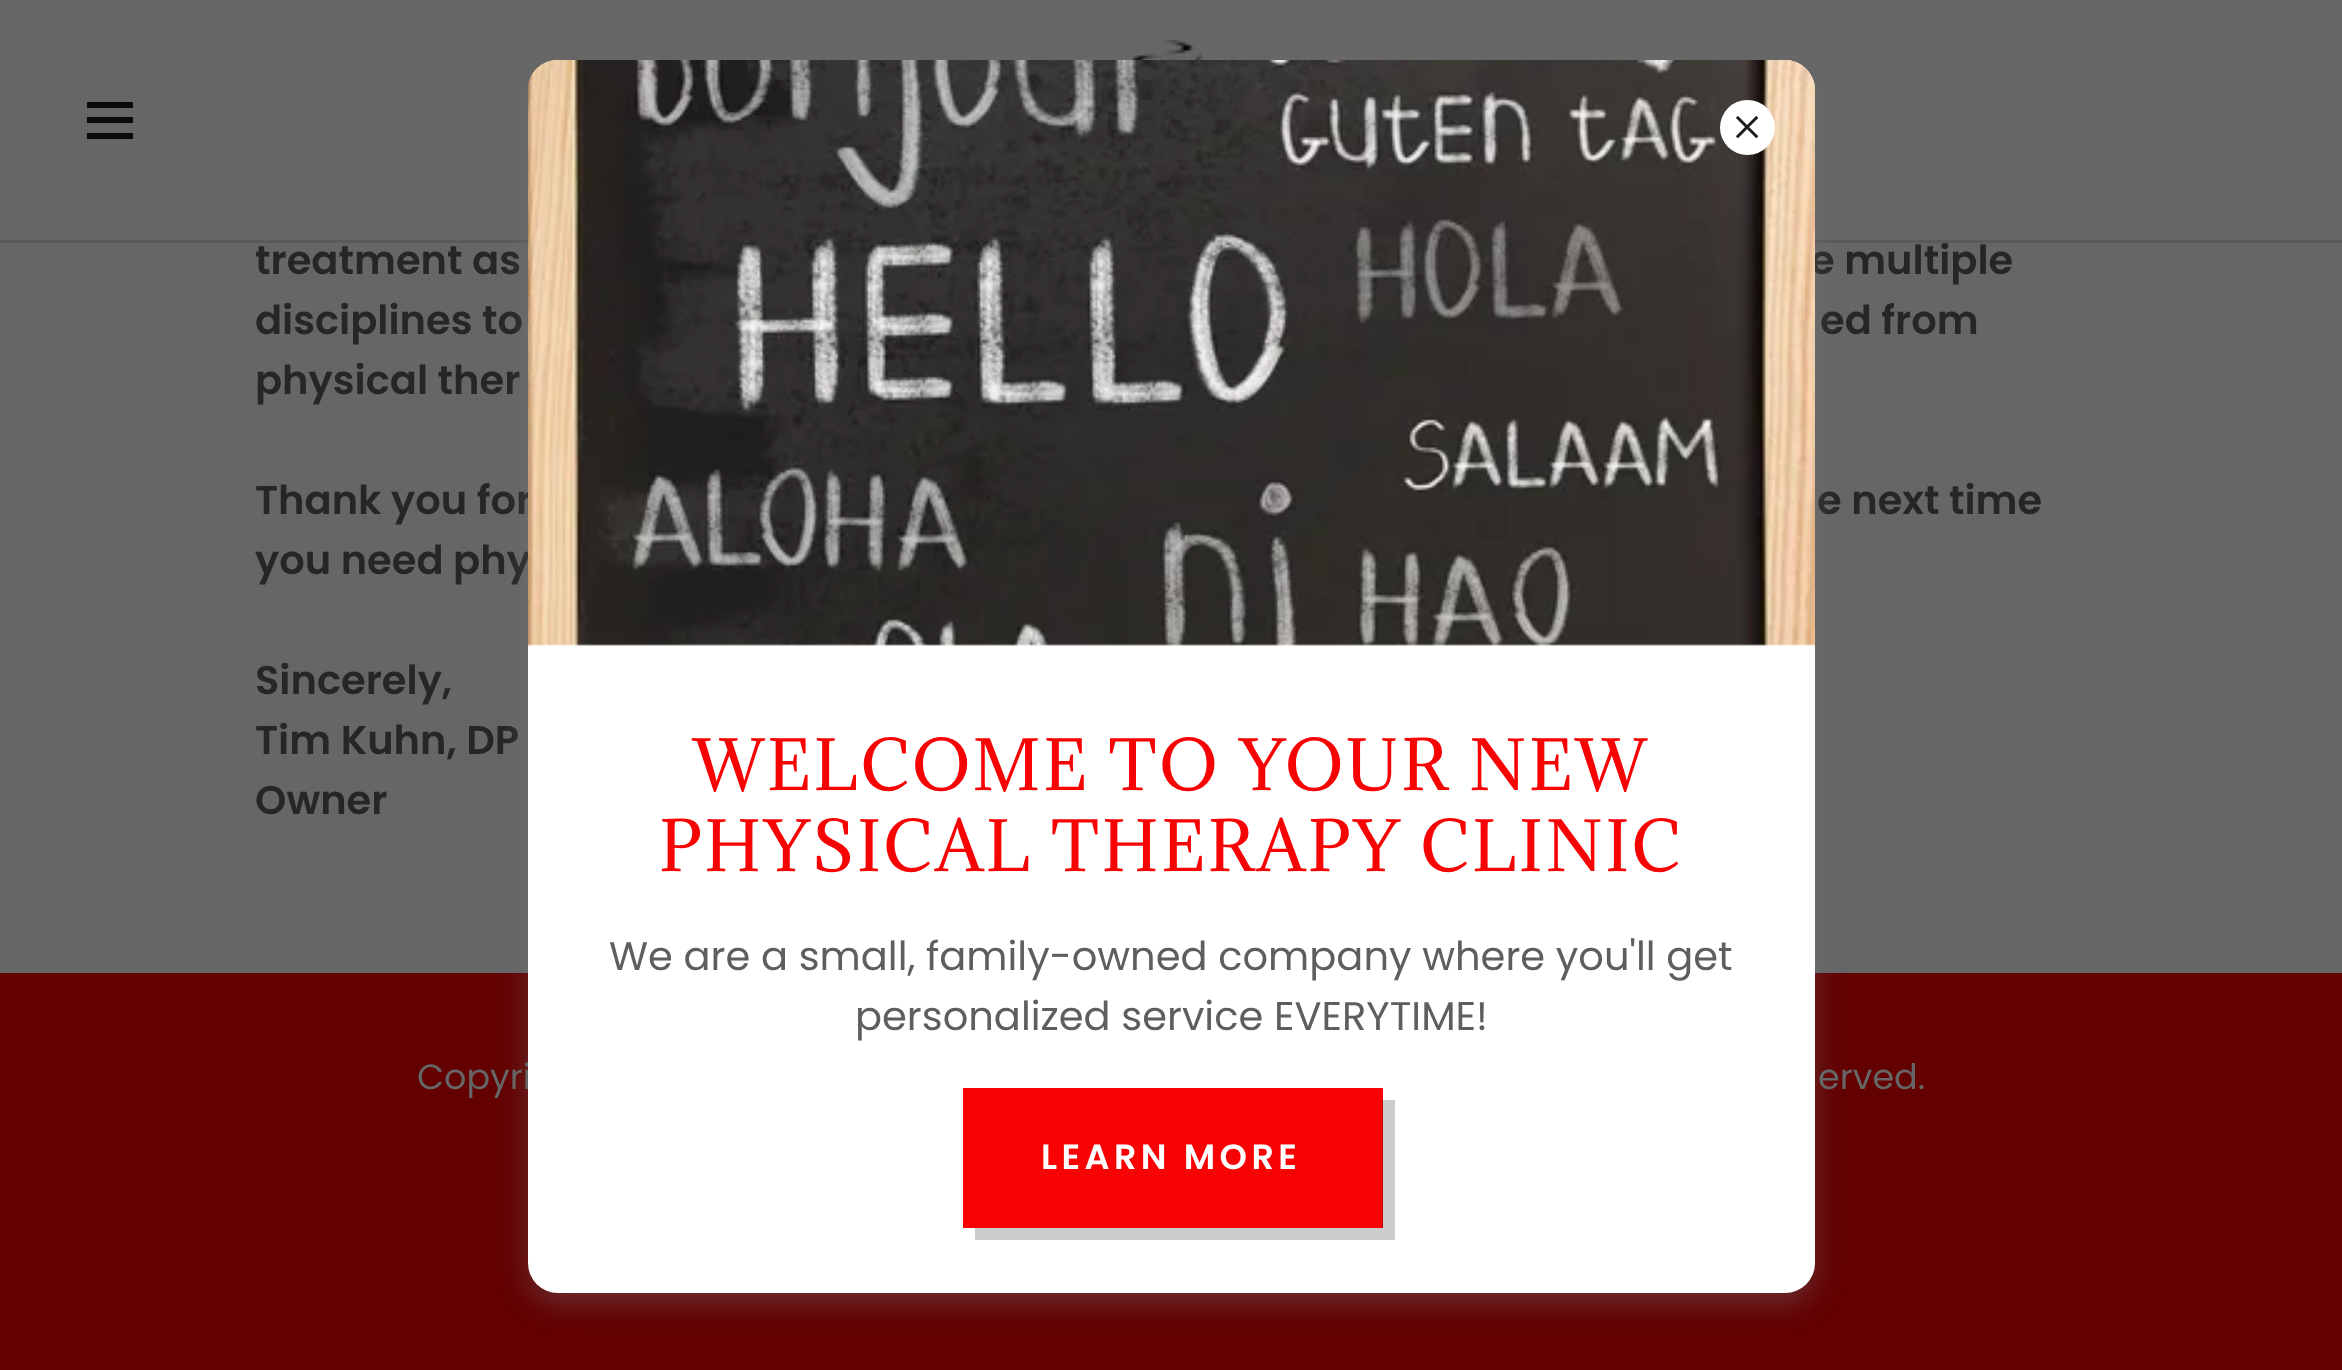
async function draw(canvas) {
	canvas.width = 2342;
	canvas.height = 1370;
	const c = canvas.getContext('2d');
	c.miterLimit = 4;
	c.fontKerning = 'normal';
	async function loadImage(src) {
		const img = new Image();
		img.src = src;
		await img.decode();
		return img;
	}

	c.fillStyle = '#630101';
	c.fillRect(0, 0, 2342, 1370);
	c.fillStyle = '#666';
	c.fillRect(0, 0, 2342, 973);
	c.drawImage(await loadImage('img1.png'), 1132, 40, 71, 20);
	for (const [x, y, w, h, color] of [
		[87, 102, 46, 6, '#0b0b0b'],
		[87, 117, 46, 6, '#0b0b0b'],
		[87, 133, 46, 6, '#0b0b0b'],
	]) {
		c.fillStyle = color;
		c.fillRect(x, y, w, h);
	}
	c.font = '600 40px Poppins';
	c.fillStyle = '#262626';
	c.fillText('e multiple', 1810, 274);
	c.fillStyle = '#5a5a5a';
	c.fillRect(0, 240, 2342, 3);
	c.fillStyle = '#262626';
	for (const [text, x, y] of [
		['treatment as', 255, 274],
		['disciplines to', 255, 334],
		['ed from', 1820, 334],
		['physical ther', 255, 394],
		['Thank you for', 255, 514],
		['e next time', 1817, 514],
		['you need phy', 255, 574],
		['Sincerely,', 255, 694],
		['Tim Kuhn, DP', 255, 754],
		['Owner', 255, 814],
	]) {
		c.fillText(text, x, y);
	}
	c.fillStyle = '#75757566';
	c.filter = 'blur(15px)';
	c.beginPath();
	c.roundRect(528, 70, 1287, 1233, 30);
	c.fill();
	c.filter = 'none';
	c.font = '35px Poppins';
	c.fillStyle = '#666';
	c.fillText('Copyri', 417, 1089);
	c.fillStyle = '#fff';
	c.beginPath();
	c.roundRect(528, 60, 1287, 1233, 30);
	c.fill();
	c.drawImage(await loadImage('img3.png'), 528, 60, 1287, 586);
	c.beginPath();
	c.arc(1747.5, 127.5, 27.5, 0, 2 * Math.PI);
	c.fill();
	c.drawImage(await loadImage('img2.png'), 1735, 115, 24, 24);
	c.letterSpacing = '2.5px';
	c.font = '65px Adamina';
	c.fillStyle = '#f70303';
	c.fillText('WELCOME TO YOUR NEW', 693, 790);
	c.fillText('PHYSICAL THERAPY CLINIC', 659, 871);
	c.letterSpacing = '0px';
	c.font = '40px Poppins';
	c.fillStyle = '#5e5e5e';
	c.fillText('We are a small, family-owned company where you\'ll get', 609, 970);
	c.fillText('personalized service EVERYTIME!', 855, 1030);
	c.fillStyle = '#f70303';
	c.fillRect(963, 1088, 420, 140);
	c.fillStyle = '#00000033';
	c.beginPath();
	c.moveTo(975, 1228);
	c.lineTo(975, 1240);
	c.lineTo(1395, 1240);
	c.lineTo(1395, 1100);
	c.lineTo(1382, 1100);
	c.lineTo(1382, 1228);
	c.closePath();
	c.fill();
	c.letterSpacing = '4.4px';
	c.font = '600 35px Poppins';
	c.fillStyle = '#fff';
	c.fillText('LEARN MORE', 1041, 1169);
	c.letterSpacing = '0px';
	c.font = '35px Poppins';
	c.fillStyle = '#666';
	c.fillText('erved.', 1818, 1089);
}

draw(document.querySelector('canvas'));
